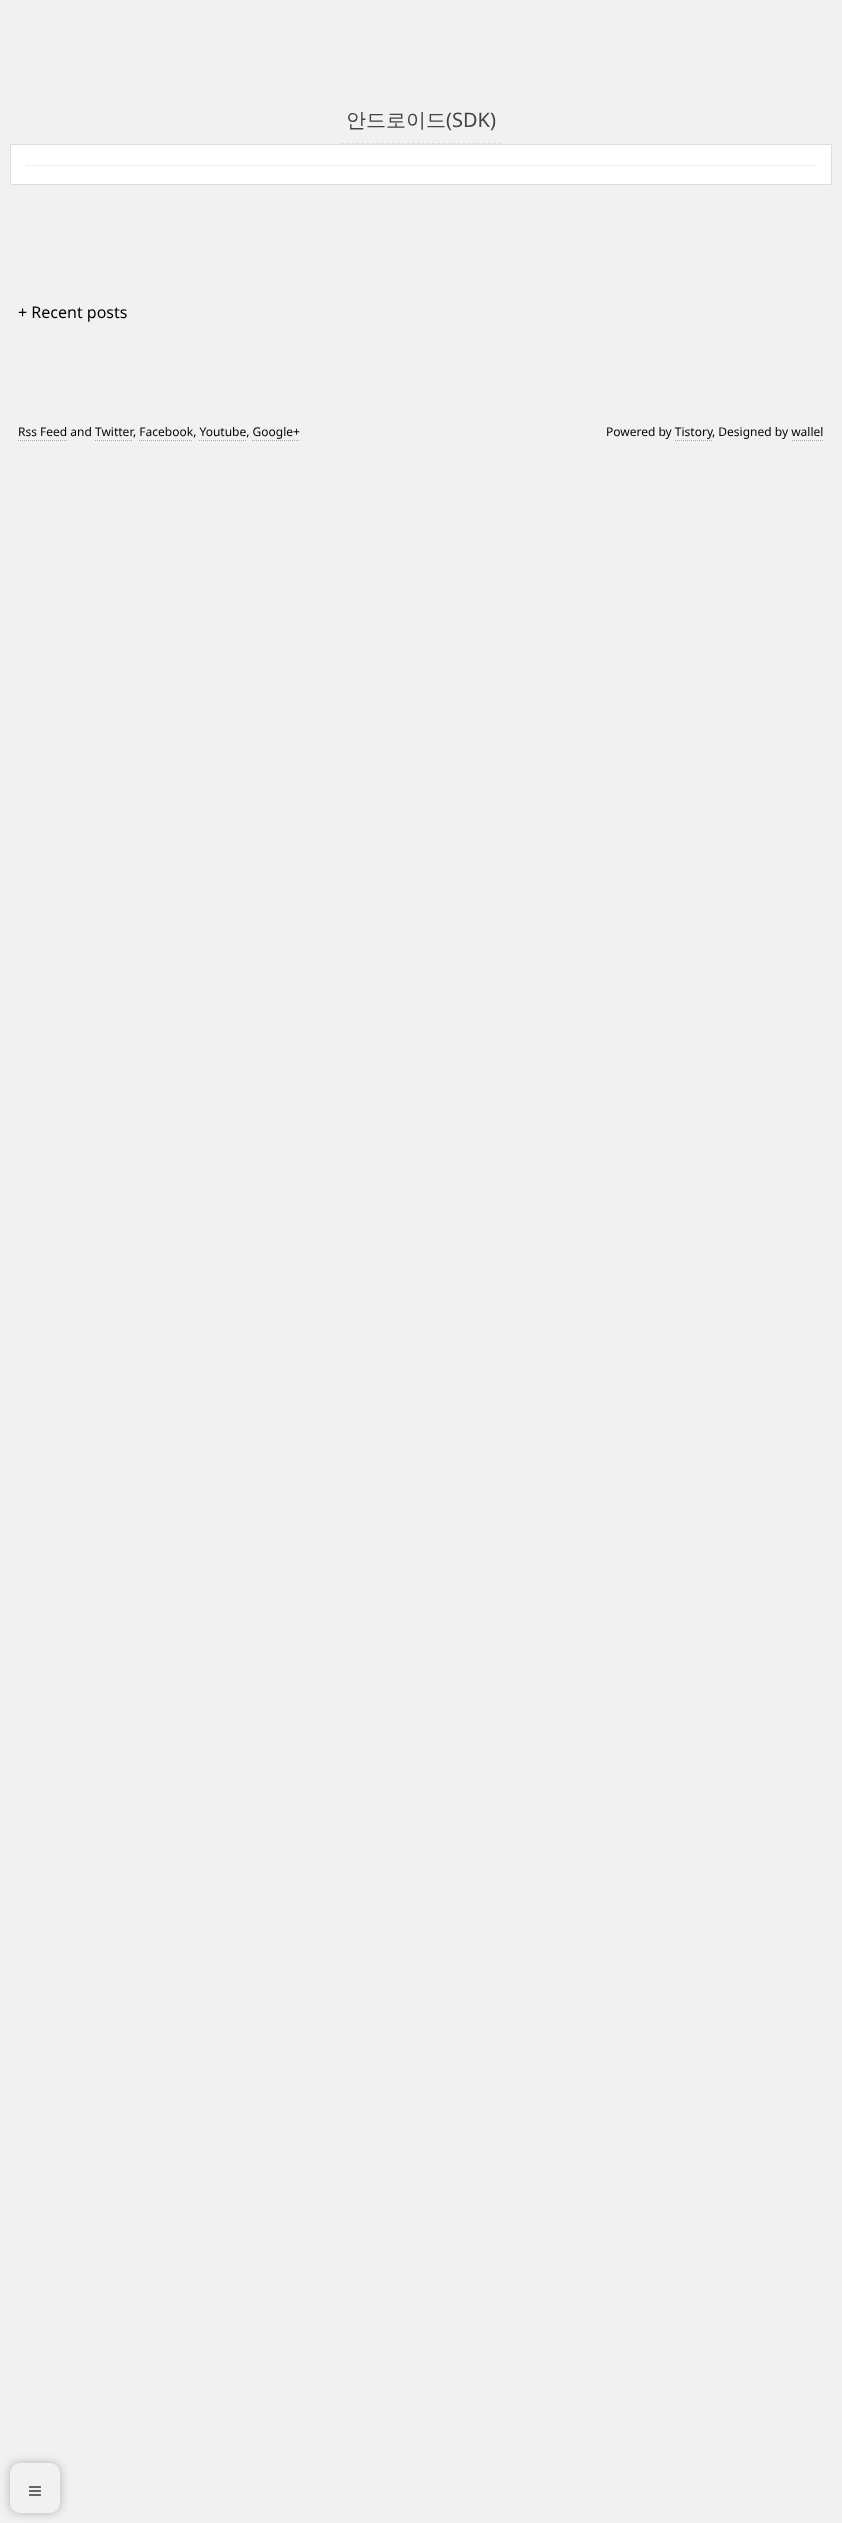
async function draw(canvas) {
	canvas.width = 842;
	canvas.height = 2523;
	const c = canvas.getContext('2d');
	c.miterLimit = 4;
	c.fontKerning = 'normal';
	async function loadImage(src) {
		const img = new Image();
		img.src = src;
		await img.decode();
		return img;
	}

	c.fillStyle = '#f1f1f1';
	c.fillRect(0, 0, 842, 2523);
	c.beginPath();
	c.moveTo(341, 143.5);
	c.lineTo(501, 143.5);
	c.strokeStyle = '#ddd';
	c.setLineDash([3, 2.06]);
	c.stroke();
	c.font = '500 20px WenQuanYi Zen Hei';
	c.fillStyle = '#444';
	c.fillText('안드로이드', 346, 127);
	c.font = '20px Noto Sans';
	c.fillText('(SDK)', 446, 127);
	c.fillStyle = '#fff';
	c.beginPath();
	c.rect(10.5, 144.5, 821, 40);
	c.fill();
	c.setLineDash([]);
	c.stroke();
	c.beginPath();
	c.moveTo(26, 165.5);
	c.lineTo(816, 165.5);
	c.setLineDash([1, 1]);
	c.stroke();
	c.font = '16px Noto Sans';
	c.fillStyle = '#000';
	c.fillText('+ Recent posts', 18, 318);
	c.font = '12px Noto Sans';
	c.fillText('Rss Feed and Twitter', 18, 436);
	c.beginPath();
	c.moveTo(18, 440.5);
	c.lineTo(67, 440.5);
	c.strokeStyle = '#aaa';
	c.stroke();
	c.fillText(', Facebook, Youtube, Google+', 133, 436);
	c.beginPath();
	c.moveTo(95, 440.5);
	c.lineTo(133, 440.5);
	c.stroke();
	c.beginPath();
	c.moveTo(139, 440.5);
	c.lineTo(193, 440.5);
	c.stroke();
	c.beginPath();
	c.moveTo(199, 440.5);
	c.lineTo(246, 440.5);
	c.stroke();
	c.beginPath();
	c.moveTo(252, 440.5);
	c.lineTo(300, 440.5);
	c.stroke();
	c.fillText('Powered by Tistory', 606, 436);
	c.fillText(', Designed by wallel', 712, 436);
	c.beginPath();
	c.moveTo(675, 440.5);
	c.lineTo(712, 440.5);
	c.stroke();
	c.beginPath();
	c.moveTo(792, 440.5);
	c.lineTo(824, 440.5);
	c.stroke();
	c.fillStyle = '#b1b1b1';
	c.filter = 'blur(5px)';
	c.beginPath();
	c.roundRect(10, 2463, 50, 50, 10);
	c.fill();
	c.filter = 'none';
	c.fillStyle = '#f1f1f1';
	c.beginPath();
	c.roundRect(10, 2463, 50, 50, 10);
	c.fill();
	c.drawImage(await loadImage('img1.png'), 29, 2486, 12, 10);
}

draw(document.querySelector('canvas'));
